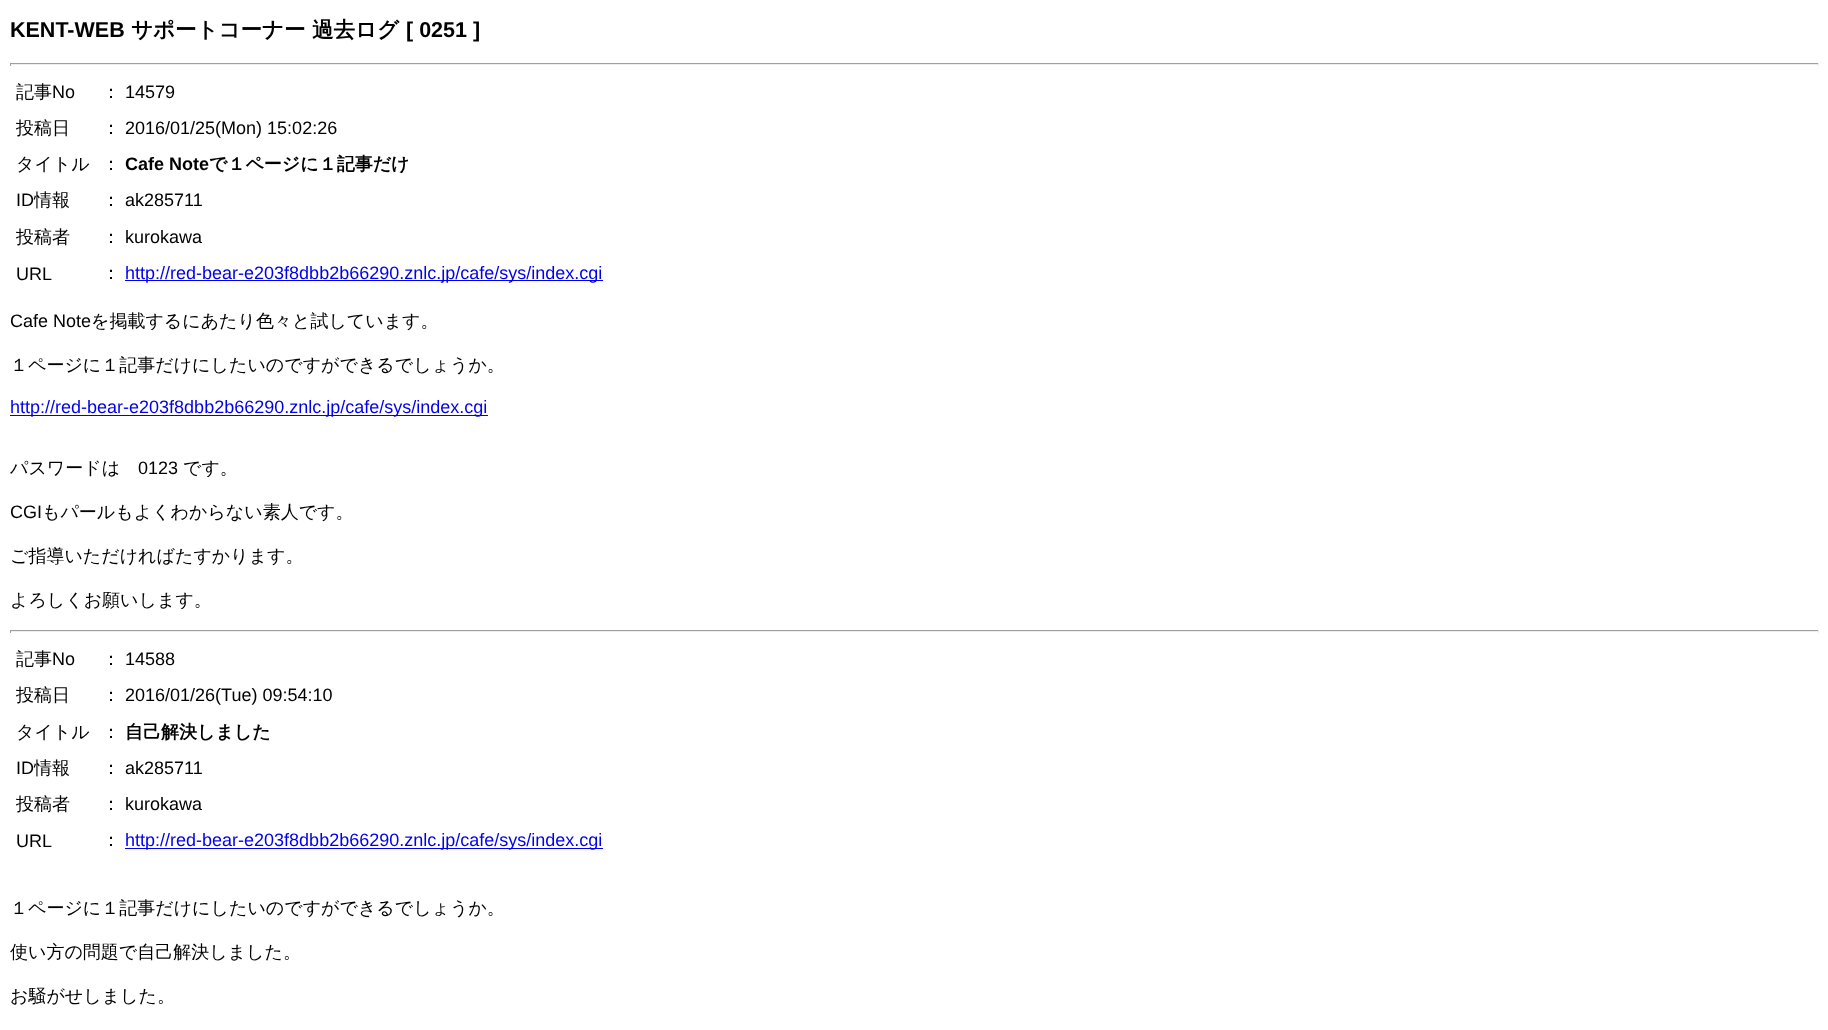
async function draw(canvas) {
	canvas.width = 1828;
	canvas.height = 1030;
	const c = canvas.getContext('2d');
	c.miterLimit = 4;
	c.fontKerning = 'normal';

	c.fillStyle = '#fff';
	c.fillRect(0, 0, 1828, 1030);
	c.font = 'bold 21.5px Liberation Sans';
	c.fillStyle = '#000';
	c.fillText('KENT-WEB', 10, 37);
	c.font = 'bold 21.5px WenQuanYi Zen Hei';
	c.fillText('サポートコーナー', 131, 37);
	c.fillText('過去ログ', 312, 37);
	c.font = 'bold 21.5px Liberation Sans';
	c.fillText('[ 0251 ]', 406, 37);
	for (const [x, y, w, h, color] of [
		[10, 63, 1809, 1, '#9f9f9f'],
		[1818, 63, 1, 3, '#eee'],
		[10, 64, 1809, 1, '#eee'],
		[10, 63, 1, 3, '#9f9f9f'],
	]) {
		c.fillStyle = color;
		c.fillRect(x, y, w, h);
	}
	c.font = '500 18px WenQuanYi Zen Hei';
	c.fillStyle = '#000';
	c.fillText('記事', 16, 98);
	c.font = '18px Liberation Sans';
	c.fillText('No', 52, 98);
	c.font = '500 18px WenQuanYi Zen Hei';
	c.fillText('：', 102, 98);
	c.font = '18px Liberation Sans';
	c.fillText('14579', 125, 98);
	c.font = '500 18px WenQuanYi Zen Hei';
	c.fillText('投稿日', 16, 134);
	c.fillText('：', 102, 134);
	c.font = '18px Liberation Sans';
	c.fillText('2016/01/25(Mon) 15:02:26', 125, 134);
	c.font = '500 18px WenQuanYi Zen Hei';
	c.fillText('タイトル', 16, 170);
	c.fillText('：', 102, 170);
	c.font = 'bold 18px Liberation Sans';
	c.fillText('Cafe Note', 125, 170);
	c.font = 'bold 18px WenQuanYi Zen Hei';
	c.fillText('で１ページに１記事だけ', 209, 170);
	c.font = '18px Liberation Sans';
	c.fillText('ID', 16, 206);
	c.font = '500 18px WenQuanYi Zen Hei';
	c.fillText('情報', 34, 206);
	c.fillText('：', 102, 206);
	c.font = '18px Liberation Sans';
	c.fillText('ak285711', 125, 206);
	c.font = '500 18px WenQuanYi Zen Hei';
	c.fillText('投稿者', 16, 243);
	c.fillText('：', 102, 243);
	c.font = '18px Liberation Sans';
	c.fillText('kurokawa', 125, 243);
	c.fillText('URL', 16, 280);
	c.font = '500 18px WenQuanYi Zen Hei';
	c.fillText('：', 102, 279);
	c.fillStyle = '#00e';
	c.fillRect(125, 280, 478, 1);
	c.font = '18px Liberation Sans';
	c.fillText('http://red-bear-e203f8dbb2b66290.znlc.jp/cafe/sys/index.cgi', 125, 279);
	c.fillStyle = '#000';
	c.fillText('Cafe Note', 10, 327);
	c.font = '500 18px WenQuanYi Zen Hei';
	c.fillText('を掲載するにあたり色々と試しています。', 91, 327);
	c.fillText('１ページに１記事だけにしたいのですができるでしょうか。', 10, 371);
	c.fillStyle = '#00e';
	c.fillRect(10, 415, 478, 1);
	c.font = '18px Liberation Sans';
	c.fillText('http://red-bear-e203f8dbb2b66290.znlc.jp/cafe/sys/index.cgi', 10, 413);
	c.font = '500 18px WenQuanYi Zen Hei';
	c.fillStyle = '#000';
	c.fillText('パスワードは', 10, 474);
	c.font = '18px Liberation Sans';
	c.fillText('0123', 138, 474);
	c.font = '500 18px WenQuanYi Zen Hei';
	c.fillText('です。', 183, 474);
	c.font = '18px Liberation Sans';
	c.fillText('CGI', 10, 518);
	c.font = '500 18px WenQuanYi Zen Hei';
	for (const [text, x, y] of [
		['もパールもよくわからない素人です。', 42, 518],
		['ご指導いただければたすかります。', 10, 562],
		['よろしくお願いします。', 10, 606],
	]) {
		c.fillText(text, x, y);
	}
	for (const [x, y, w, h, color] of [
		[10, 630, 1809, 1, '#9f9f9f'],
		[1818, 630, 1, 3, '#eee'],
		[10, 631, 1809, 1, '#eee'],
		[10, 630, 1, 3, '#9f9f9f'],
	]) {
		c.fillStyle = color;
		c.fillRect(x, y, w, h);
	}
	c.fillStyle = '#000';
	c.fillText('記事', 16, 665);
	c.font = '18px Liberation Sans';
	c.fillText('No', 52, 665);
	c.font = '500 18px WenQuanYi Zen Hei';
	c.fillText('：', 102, 665);
	c.font = '18px Liberation Sans';
	c.fillText('14588', 125, 665);
	c.font = '500 18px WenQuanYi Zen Hei';
	c.fillText('投稿日', 16, 701);
	c.fillText('：', 102, 701);
	c.font = '18px Liberation Sans';
	c.fillText('2016/01/26(Tue) 09:54:10', 125, 701);
	c.font = '500 18px WenQuanYi Zen Hei';
	c.fillText('タイトル', 16, 738);
	c.fillText('：', 102, 738);
	c.font = 'bold 18px WenQuanYi Zen Hei';
	c.fillText('自己解決しました', 125, 738);
	c.font = '18px Liberation Sans';
	c.fillText('ID', 16, 774);
	c.font = '500 18px WenQuanYi Zen Hei';
	c.fillText('情報', 34, 774);
	c.fillText('：', 102, 774);
	c.font = '18px Liberation Sans';
	c.fillText('ak285711', 125, 774);
	c.font = '500 18px WenQuanYi Zen Hei';
	c.fillText('投稿者', 16, 810);
	c.fillText('：', 102, 810);
	c.font = '18px Liberation Sans';
	c.fillText('kurokawa', 125, 810);
	c.fillText('URL', 16, 847);
	c.font = '500 18px WenQuanYi Zen Hei';
	c.fillText('：', 102, 846);
	c.fillStyle = '#00e';
	c.fillRect(125, 848, 478, 1);
	c.font = '18px Liberation Sans';
	c.fillText('http://red-bear-e203f8dbb2b66290.znlc.jp/cafe/sys/index.cgi', 125, 846);
	c.font = '500 18px WenQuanYi Zen Hei';
	c.fillStyle = '#000';
	for (const [text, x, y] of [
		['１ページに１記事だけにしたいのですができるでしょうか。', 10, 914],
		['使い方の問題で自己解決しました。', 10, 958],
		['お騒がせしました。', 10, 1002],
	]) {
		c.fillText(text, x, y);
	}
}

draw(document.querySelector('canvas'));
